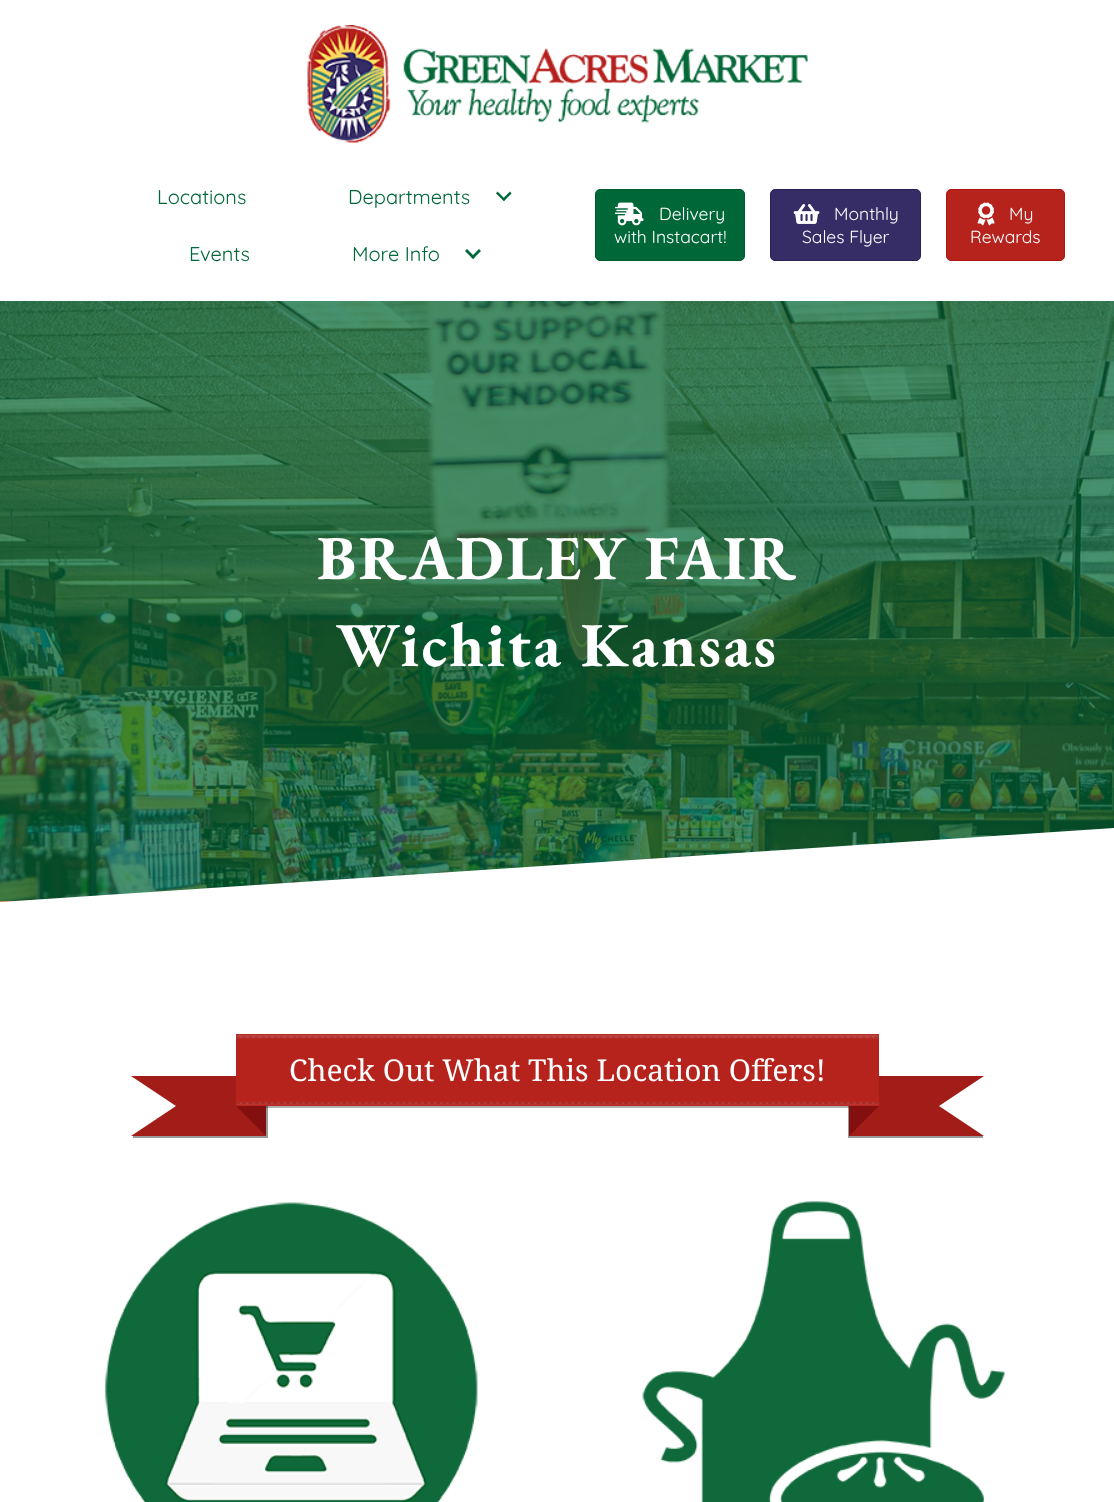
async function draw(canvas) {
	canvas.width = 1114;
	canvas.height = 1502;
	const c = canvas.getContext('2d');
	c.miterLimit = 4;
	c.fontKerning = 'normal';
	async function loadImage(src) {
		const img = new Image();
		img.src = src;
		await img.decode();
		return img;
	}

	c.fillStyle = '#fff';
	c.fillRect(0, 0, 1114, 1502);
	c.drawImage(await loadImage('img1.png'), 307, 25, 501, 118);
	c.font = '20px Quicksand';
	c.fillStyle = '#006838';
	c.fillText('Locations', 157, 204);
	c.fillText('Departments', 348, 204);
	c.beginPath();
	c.moveTo(510, 191.5);
	c.lineTo(511.5, 193.5);
	c.lineTo(504, 201);
	c.lineTo(502, 199.5);
	c.closePath();
	c.fill();
	c.beginPath();
	c.moveTo(497.5, 191.5);
	c.lineTo(505.5, 199.5);
	c.lineTo(504, 201);
	c.lineTo(496, 193.5);
	c.closePath();
	c.fill();
	c.fillText('Events', 189, 261);
	c.fillText('More Info', 352, 261);
	c.beginPath();
	c.moveTo(479, 249);
	c.lineTo(481, 251);
	c.lineTo(473, 259);
	c.lineTo(471, 257);
	c.closePath();
	c.fill();
	c.beginPath();
	c.moveTo(467, 249);
	c.lineTo(475, 257);
	c.lineTo(473, 259);
	c.lineTo(465, 251);
	c.closePath();
	c.fill();
	c.beginPath();
	c.roundRect(595.5, 189.5, 149, 71, 4.5);
	c.fill();
	c.strokeStyle = '#005c2c';
	c.stroke();
	c.drawImage(await loadImage('img2.png'), 615, 202, 29, 24);
	c.font = '17.5px Quicksand';
	c.fillStyle = '#fff';
	c.fillText('Delivery', 659, 220);
	c.fillText('with Instacart!', 614, 243);
	c.fillStyle = '#362c66';
	c.beginPath();
	c.roundRect(770.5, 189.5, 150, 71, 4.5);
	c.fill();
	c.strokeStyle = '#2a205a';
	c.stroke();
	c.drawImage(await loadImage('img3.png'), 793, 204, 27, 20);
	c.fillStyle = '#fff';
	c.fillText('Monthly', 834, 220);
	c.fillText('Sales Flyer', 802, 243);
	c.fillStyle = '#b5231c';
	c.beginPath();
	c.roundRect(946.5, 189.5, 118, 71, 4.5);
	c.fill();
	c.strokeStyle = '#a91710';
	c.stroke();
	c.drawImage(await loadImage('img4.png'), 977, 202, 18, 24);
	c.fillStyle = '#fff';
	c.fillText('My', 1009, 220);
	c.fillText('Rewards', 970, 243);
	c.drawImage(await loadImage('img5.png'), 0, 301, 1114, 601);
	c.letterSpacing = '2.5px';
	c.font = 'bold 62.5px EB Garamond';
	c.fillText('BRADLEY FAIR', 317, 579);
	c.fillText('Wichita Kansas', 336, 666);
	c.beginPath();
	c.moveTo(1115, 828);
	c.lineTo(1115, 902);
	c.lineTo(0, 902);
	c.closePath();
	c.fill();
	c.fillStyle = '#0000004d';
	c.filter = 'blur(0.5px)';
	c.beginPath();
	c.roundRect(236, 1035, 643, 73, 2.5);
	c.fill();
	c.filter = 'none';
	c.save();
	c.beginPath();
	c.moveTo(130, 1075);
	c.lineTo(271, 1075);
	c.lineTo(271, 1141);
	c.lineTo(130, 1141);
	c.closePath();
	c.moveTo(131, 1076);
	c.lineTo(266, 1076);
	c.lineTo(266, 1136);
	c.lineTo(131, 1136);
	c.closePath();
	c.clip('evenodd');
	c.fillStyle = '#00000066';
	c.filter = 'blur(0.5px)';
	c.beginPath();
	c.rect(133, 1078, 135, 60);
	c.fill();
	c.filter = 'none';
	c.restore();
	c.fillStyle = '#a31d18';
	c.beginPath();
	c.moveTo(131, 1076);
	c.lineTo(266, 1076);
	c.lineTo(176, 1106);
	c.closePath();
	c.fill();
	c.fillRect(176, 1076, 90, 60);
	c.save();
	c.beginPath();
	c.moveTo(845, 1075);
	c.lineTo(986, 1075);
	c.lineTo(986, 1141);
	c.lineTo(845, 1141);
	c.closePath();
	c.moveTo(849, 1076);
	c.lineTo(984, 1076);
	c.lineTo(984, 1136);
	c.lineTo(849, 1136);
	c.closePath();
	c.clip('evenodd');
	c.fillStyle = '#00000066';
	c.filter = 'blur(0.5px)';
	c.beginPath();
	c.rect(848, 1078, 135, 60);
	c.fill();
	c.filter = 'none';
	c.restore();
	c.beginPath();
	c.moveTo(849, 1076);
	c.lineTo(984, 1076);
	c.lineTo(939, 1106);
	c.closePath();
	c.fill();
	c.beginPath();
	c.moveTo(984, 1136);
	c.lineTo(849, 1136);
	c.lineTo(939, 1106);
	c.closePath();
	c.fill();
	c.fillRect(849, 1076, 90, 60);
	c.fillStyle = '#b5231c';
	c.fillRect(236, 1034, 643, 72);
	c.fillStyle = '#ffffff80';
	c.filter = 'blur(1px)';
	c.beginPath();
	c.rect(236, 1036, 643, 1);
	c.fill();
	c.filter = 'none';
	c.beginPath();
	c.moveTo(236, 1037);
	c.lineTo(879, 1037);
	c.strokeStyle = '#00000033';
	c.lineWidth = 1.2;
	c.setLineDash([3.75, 2.51]);
	c.stroke();
	c.letterSpacing = '0px';
	c.font = '30px Noto Serif';
	c.fillStyle = '#fff';
	c.fillText('Check Out What This Location Offers!', 289, 1081);
	c.fillStyle = '#a31d18';
	c.beginPath();
	c.moveTo(266, 1136);
	c.lineTo(131, 1136);
	c.lineTo(176, 1106);
	c.closePath();
	c.fill();
	c.fillStyle = '#840f0f';
	c.beginPath();
	c.moveTo(236, 1106);
	c.lineTo(266, 1106);
	c.lineTo(266, 1136);
	c.closePath();
	c.fill();
	c.fillStyle = '#ffffff4d';
	c.filter = 'blur(1px)';
	c.beginPath();
	c.rect(236, 1103, 643, 1);
	c.fill();
	c.filter = 'none';
	c.beginPath();
	c.moveTo(236, 1103);
	c.lineTo(879, 1103);
	c.strokeStyle = '#93221c';
	c.stroke();
	c.fillStyle = '#840f0f';
	c.beginPath();
	c.moveTo(849, 1106);
	c.lineTo(879, 1106);
	c.lineTo(849, 1136);
	c.closePath();
	c.fill();
	c.drawImage(await loadImage('img6.png'), 104, 1202, 374, 300);
	c.drawImage(await loadImage('img7.png'), 642, 1201, 364, 301);
}

draw(document.querySelector('canvas'));
